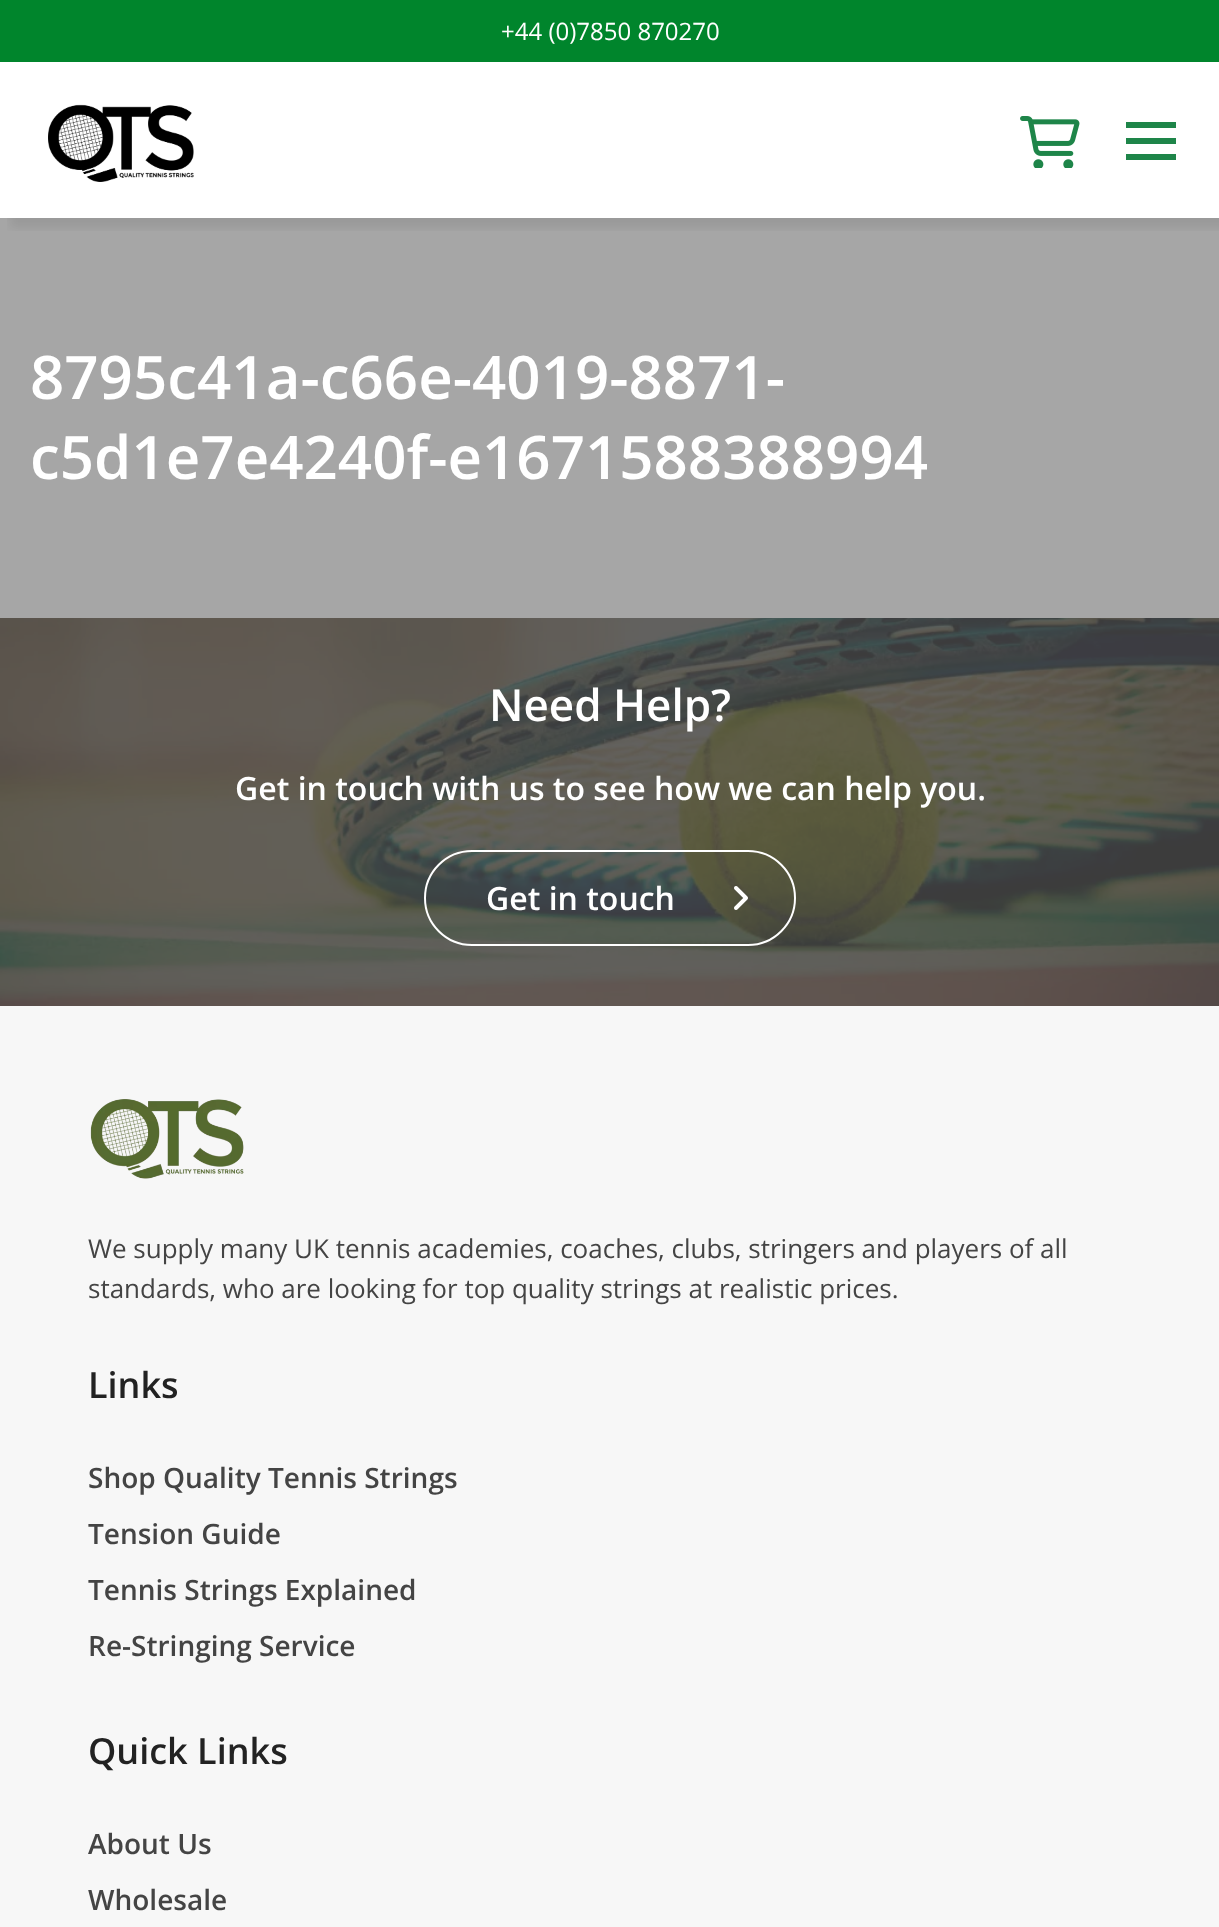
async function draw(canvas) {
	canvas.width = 1219;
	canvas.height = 1927;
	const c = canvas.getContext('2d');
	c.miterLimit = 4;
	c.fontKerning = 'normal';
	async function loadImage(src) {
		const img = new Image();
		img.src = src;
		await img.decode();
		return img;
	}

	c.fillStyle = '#fff';
	c.fillRect(0, 0, 1219, 1927);
	c.fillStyle = '#a6a6a6';
	c.fillRect(0, 218, 1219, 400);
	c.save();
	c.beginPath();
	c.rect(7, 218, 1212, 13);
	c.clip();
	c.fillStyle = '#00000012';
	c.filter = 'blur(5px)';
	c.beginPath();
	c.rect(10, 10, 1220, 218);
	c.fill();
	c.filter = 'none';
	c.restore();
	c.fillStyle = '#00852c';
	c.fillRect(0, 0, 1219, 62);
	c.font = '24px Open Sans';
	c.fillStyle = '#fff';
	c.fillText('+44 (0)7850 870270', 501, 40);
	c.drawImage(await loadImage('img1.png'), 48, 104, 146, 78);
	c.drawImage(await loadImage('img2.png'), 1020, 116, 60, 52);
	for (const [x, y, w, h, color] of [
		[1126, 122, 50, 6, '#1e8549'],
		[1126, 138, 50, 6, '#1e8549'],
		[1126, 154, 50, 6, '#1e8549'],
	]) {
		c.fillStyle = color;
		c.fillRect(x, y, w, h);
	}
	c.font = '600 60px Open Sans';
	c.fillStyle = '#fff';
	c.fillText('8795c41a-c66e-4019-8871-', 30, 399);
	c.fillText('c5d1e7e4240f-e1671588388994', 30, 479);
	c.drawImage(await loadImage('img3.png'), 0, 618, 1219, 388);
	c.font = '600 44px Open Sans';
	c.fillText('Need Help?', 489, 721);
	c.font = '600 32px Open Sans';
	c.fillText('Get in touch with us to see how we can help you.', 235, 800);
	c.beginPath();
	c.roundRect(425, 851, 370, 94, 47);
	c.strokeStyle = '#fff';
	c.lineWidth = 2;
	c.stroke();
	c.fillText('Get in touch', 486, 910);
	c.drawImage(await loadImage('img4.png'), 734, 886, 14, 24);
	c.fillStyle = '#f7f7f7';
	c.fillRect(0, 1006, 1219, 921);
	c.drawImage(await loadImage('img5.png'), 90, 1099, 154, 80);
	c.font = '26px Open Sans';
	c.fillStyle = '#444';
	c.fillText('We supply many UK tennis academies, coaches, clubs, stringers and players of all', 88, 1258);
	c.fillText('standards, who are looking for top quality strings at realistic prices.', 88, 1298);
	c.font = '600 36px Open Sans';
	c.fillStyle = '#222';
	c.fillText('Links', 88, 1398);
	c.font = '600 28px Open Sans';
	c.fillStyle = '#444';
	for (const [text, x, y] of [
		['Shop Quality Tennis Strings', 88, 1488],
		['Tension Guide', 88, 1544],
		['Tennis Strings Explained', 88, 1600],
		['Re-Stringing Service', 88, 1656],
	]) {
		c.fillText(text, x, y);
	}
	c.font = '600 36px Open Sans';
	c.fillStyle = '#222';
	c.fillText('Quick Links', 88, 1764);
	c.font = '600 28px Open Sans';
	c.fillStyle = '#444';
	c.fillText('About Us', 88, 1854);
	c.fillText('Wholesale', 88, 1910);
}

draw(document.querySelector('canvas'));
